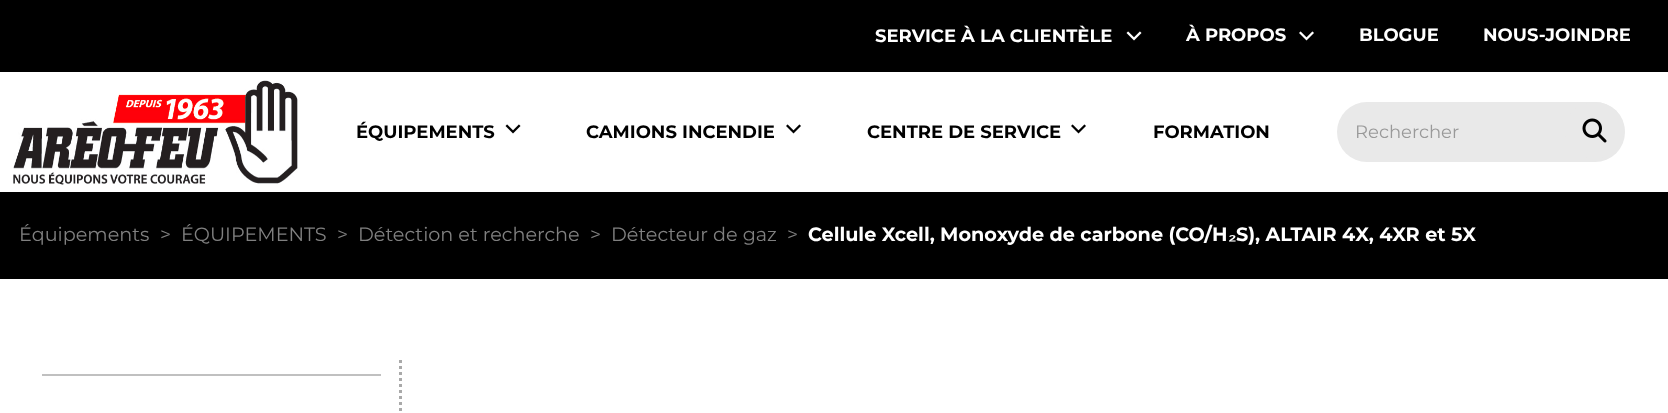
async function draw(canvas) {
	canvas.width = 1668;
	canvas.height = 413;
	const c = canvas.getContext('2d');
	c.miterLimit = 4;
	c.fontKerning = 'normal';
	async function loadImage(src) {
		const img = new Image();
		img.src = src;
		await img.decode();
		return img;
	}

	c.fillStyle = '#fff';
	c.fillRect(0, 0, 1668, 413);
	c.fillStyle = '#000';
	c.fillRect(0, 0, 1668, 72);
	c.font = 'bold 18px Montserrat';
	c.fillStyle = '#fff';
	c.fillText('SERVICE À LA CLIENTÈLE', 875, 42);
	c.drawImage(await loadImage('img1.png'), 1126, 31, 16, 10);
	c.fillText('À PROPOS', 1186, 41);
	c.drawImage(await loadImage('img2.png'), 1299, 31, 15, 10);
	c.fillText('BLOGUE', 1359, 41);
	c.fillText('NOUS-JOINDRE', 1483, 41);
	c.drawImage(await loadImage('img3.png'), 13, 80, 285, 105);
	c.fillStyle = '#000';
	c.fillText('ÉQUIPEMENTS', 356, 138);
	c.drawImage(await loadImage('img4.png'), 505, 124, 16, 10);
	c.fillText('CAMIONS INCENDIE', 586, 138);
	c.drawImage(await loadImage('img5.png'), 786, 124, 15, 10);
	c.fillText('CENTRE DE SERVICE', 867, 138);
	c.drawImage(await loadImage('img5.png'), 1071, 124, 15, 10);
	c.fillText('FORMATION', 1153, 138);
	c.fillStyle = '#e9e9e9';
	c.beginPath();
	c.roundRect(1337, 102, 288, 60, 30);
	c.fill();
	c.font = '18px Montserrat';
	c.fillStyle = '#999';
	c.fillText('Rechercher', 1355, 138);
	c.fillStyle = '#e9e9e9';
	c.beginPath();
	c.ellipse(1594.5, 130.5, 30, 28.5, 0, 0, 2 * Math.PI);
	c.fill();
	c.drawImage(await loadImage('img6.png'), 1582, 118, 25, 25);
	c.fillStyle = '#000';
	c.fillRect(0, 192, 1668, 87);
	c.font = '19.2px Montserrat';
	c.fillStyle = '#808080';
	for (const [text, x, y] of [
		['Équipements', 19, 241],
		['>', 160, 241],
		['ÉQUIPEMENTS', 181, 241],
		['>', 337, 241],
		['Détection et recherche', 358, 241],
		['>', 590, 241],
		['Détecteur de gaz', 611, 241],
		['>', 787, 241],
	]) {
		c.fillText(text, x, y);
	}
	c.font = 'bold 19.2px Montserrat';
	c.fillStyle = '#fff';
	c.fillText('Cellule Xcell, Monoxyde de carbone (CO/H', 808, 241);
	c.font = 'bold 19.2px Liberation Sans';
	c.fillText('₂', 1228, 241);
	c.font = 'bold 19.2px Montserrat';
	c.fillText('S), ALTAIR 4X, 4XR et 5X', 1236, 241);
	c.beginPath();
	c.moveTo(400.5, 360);
	c.lineTo(400.5, 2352);
	c.strokeStyle = '#a9a9a9';
	c.lineWidth = 3;
	c.setLineDash([3, 3]);
	c.stroke();
	c.fillStyle = '#c0c0c0';
	c.fillRect(42, 374, 339, 2);
}

draw(document.querySelector('canvas'));
